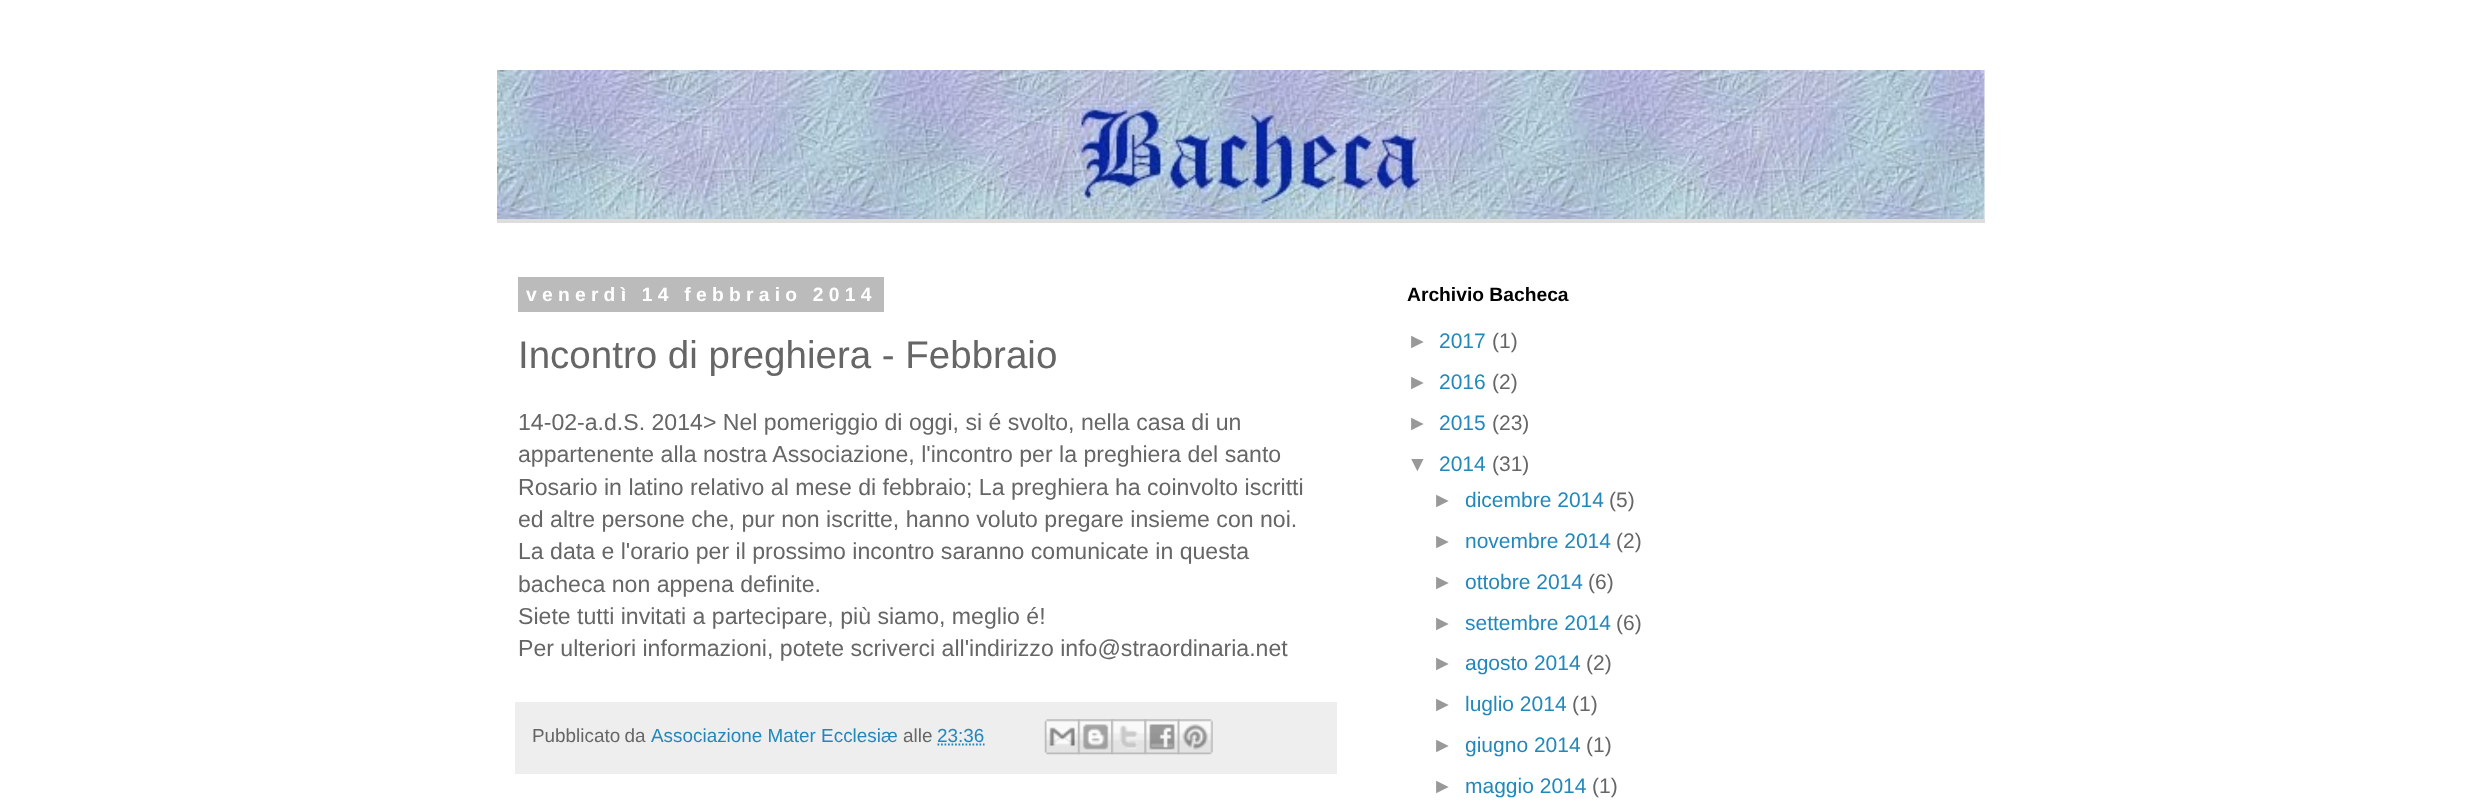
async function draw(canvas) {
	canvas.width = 2481;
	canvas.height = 811;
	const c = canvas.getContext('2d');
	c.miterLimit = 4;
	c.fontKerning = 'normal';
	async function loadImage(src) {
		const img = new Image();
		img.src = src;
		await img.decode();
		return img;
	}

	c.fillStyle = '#fff';
	c.fillRect(0, 0, 2481, 811);
	c.drawImage(await loadImage('img1.png'), 497, 70, 1488, 149);
	c.fillStyle = '#ddd';
	c.fillRect(497, 219, 1488, 4);
	c.fillStyle = '#bbb';
	c.fillRect(518, 277, 366, 35);
	c.letterSpacing = '5.25px';
	c.font = 'bold 19.25px Liberation Sans';
	c.fillStyle = '#fff';
	c.fillText('venerdì 14 febbraio 2014', 526, 301);
	c.letterSpacing = '0px';
	c.font = '38.5px Liberation Sans';
	c.fillStyle = '#666';
	c.fillText('Incontro di preghiera - Febbraio', 518, 368);
	c.font = '23.1px Liberation Sans';
	for (const [text, x, y] of [
		['14-02-a.d.S. 2014> Nel pomeriggio di oggi, si é svolto, nella casa di un', 518, 430],
		['appartenente alla nostra Associazione, l\'incontro per la preghiera del santo', 518, 462],
		['Rosario in latino relativo al mese di febbraio; La preghiera ha coinvolto iscritti', 518, 495],
		['ed altre persone che, pur non iscritte, hanno voluto pregare insieme con noi.', 518, 527],
		['La data e l\'orario per il prossimo incontro saranno comunicate in questa', 518, 559],
		['bacheca non appena definite.', 518, 592],
		['Siete tutti invitati a partecipare, più siamo, meglio é!', 518, 624],
		['Per ulteriori informazioni, potete scriverci all\'indirizzo info@straordinaria.net', 518, 656],
	]) {
		c.fillText(text, x, y);
	}
	c.fillStyle = '#eee';
	c.fillRect(515, 702, 822, 72);
	c.wordSpacing = '-1px';
	c.font = '18.9px Liberation Sans';
	c.fillStyle = '#666';
	c.fillText('Pubblicato da', 532, 742);
	c.wordSpacing = '0px';
	c.fillStyle = '#28b';
	c.fillText('Associazione Mater Ecclesiæ', 651, 742);
	c.fillStyle = '#666';
	c.fillText('alle', 903, 742);
	c.fillStyle = '#28b';
	c.fillText('23:36', 937, 742);
	c.beginPath();
	c.moveTo(937.5, 744.5);
	c.lineTo(984.5, 744.5);
	c.strokeStyle = '#28b';
	c.lineWidth = 1.8;
	c.setLineDash([1.75, 1.75]);
	c.stroke();
	c.drawImage(await loadImage('img2.png'), 1044, 719, 36, 36);
	c.drawImage(await loadImage('img3.png'), 1078, 719, 35, 36);
	c.drawImage(await loadImage('img4.png'), 1111, 719, 36, 36);
	c.drawImage(await loadImage('img5.png'), 1144, 719, 36, 36);
	c.drawImage(await loadImage('img6.png'), 1177, 719, 36, 36);
	c.font = 'bold 19.25px Liberation Sans';
	c.fillStyle = '#000';
	c.fillText('Archivio Bacheca', 1407, 301);
	c.font = '21px Liberation Sans';
	c.fillStyle = '#999';
	c.fillText('►', 1407, 348);
	c.fillStyle = '#28b';
	c.fillText('2017', 1439, 348);
	c.fillStyle = '#666';
	c.fillText('(1)', 1492, 348);
	c.fillStyle = '#999';
	c.fillText('►', 1407, 389);
	c.fillStyle = '#28b';
	c.fillText('2016', 1439, 389);
	c.fillStyle = '#666';
	c.fillText('(2)', 1492, 389);
	c.fillStyle = '#999';
	c.fillText('►', 1407, 430);
	c.fillStyle = '#28b';
	c.fillText('2015', 1439, 430);
	c.fillStyle = '#666';
	c.fillText('(23)', 1492, 430);
	c.fillStyle = '#999';
	c.fillText('▼', 1407, 471);
	c.fillStyle = '#28b';
	c.fillText('2014', 1439, 471);
	c.fillStyle = '#666';
	c.fillText('(31)', 1492, 471);
	c.fillStyle = '#999';
	c.fillText('►', 1432, 507);
	c.fillStyle = '#28b';
	c.fillText('dicembre 2014', 1465, 507);
	c.fillStyle = '#666';
	c.fillText('(5)', 1609, 507);
	c.fillStyle = '#999';
	c.fillText('►', 1432, 548);
	c.fillStyle = '#28b';
	c.fillText('novembre 2014', 1465, 548);
	c.fillStyle = '#666';
	c.fillText('(2)', 1616, 548);
	c.fillStyle = '#999';
	c.fillText('►', 1432, 589);
	c.fillStyle = '#28b';
	c.fillText('ottobre 2014', 1465, 589);
	c.fillStyle = '#666';
	c.fillText('(6)', 1588, 589);
	c.fillStyle = '#999';
	c.fillText('►', 1432, 630);
	c.fillStyle = '#28b';
	c.fillText('settembre 2014', 1465, 630);
	c.fillStyle = '#666';
	c.fillText('(6)', 1616, 630);
	c.fillStyle = '#999';
	c.fillText('►', 1432, 670);
	c.fillStyle = '#28b';
	c.fillText('agosto 2014', 1465, 670);
	c.fillStyle = '#666';
	c.fillText('(2)', 1586, 670);
	c.fillStyle = '#999';
	c.fillText('►', 1432, 711);
	c.fillStyle = '#28b';
	c.fillText('luglio 2014', 1465, 711);
	c.fillStyle = '#666';
	c.fillText('(1)', 1572, 711);
	c.fillStyle = '#999';
	c.fillText('►', 1432, 752);
	c.fillStyle = '#28b';
	c.fillText('giugno 2014', 1465, 752);
	c.fillStyle = '#666';
	c.fillText('(1)', 1586, 752);
	c.fillStyle = '#999';
	c.fillText('►', 1432, 793);
	c.fillStyle = '#28b';
	c.fillText('maggio 2014', 1465, 793);
	c.fillStyle = '#666';
	c.fillText('(1)', 1592, 793);
}

draw(document.querySelector('canvas'));
